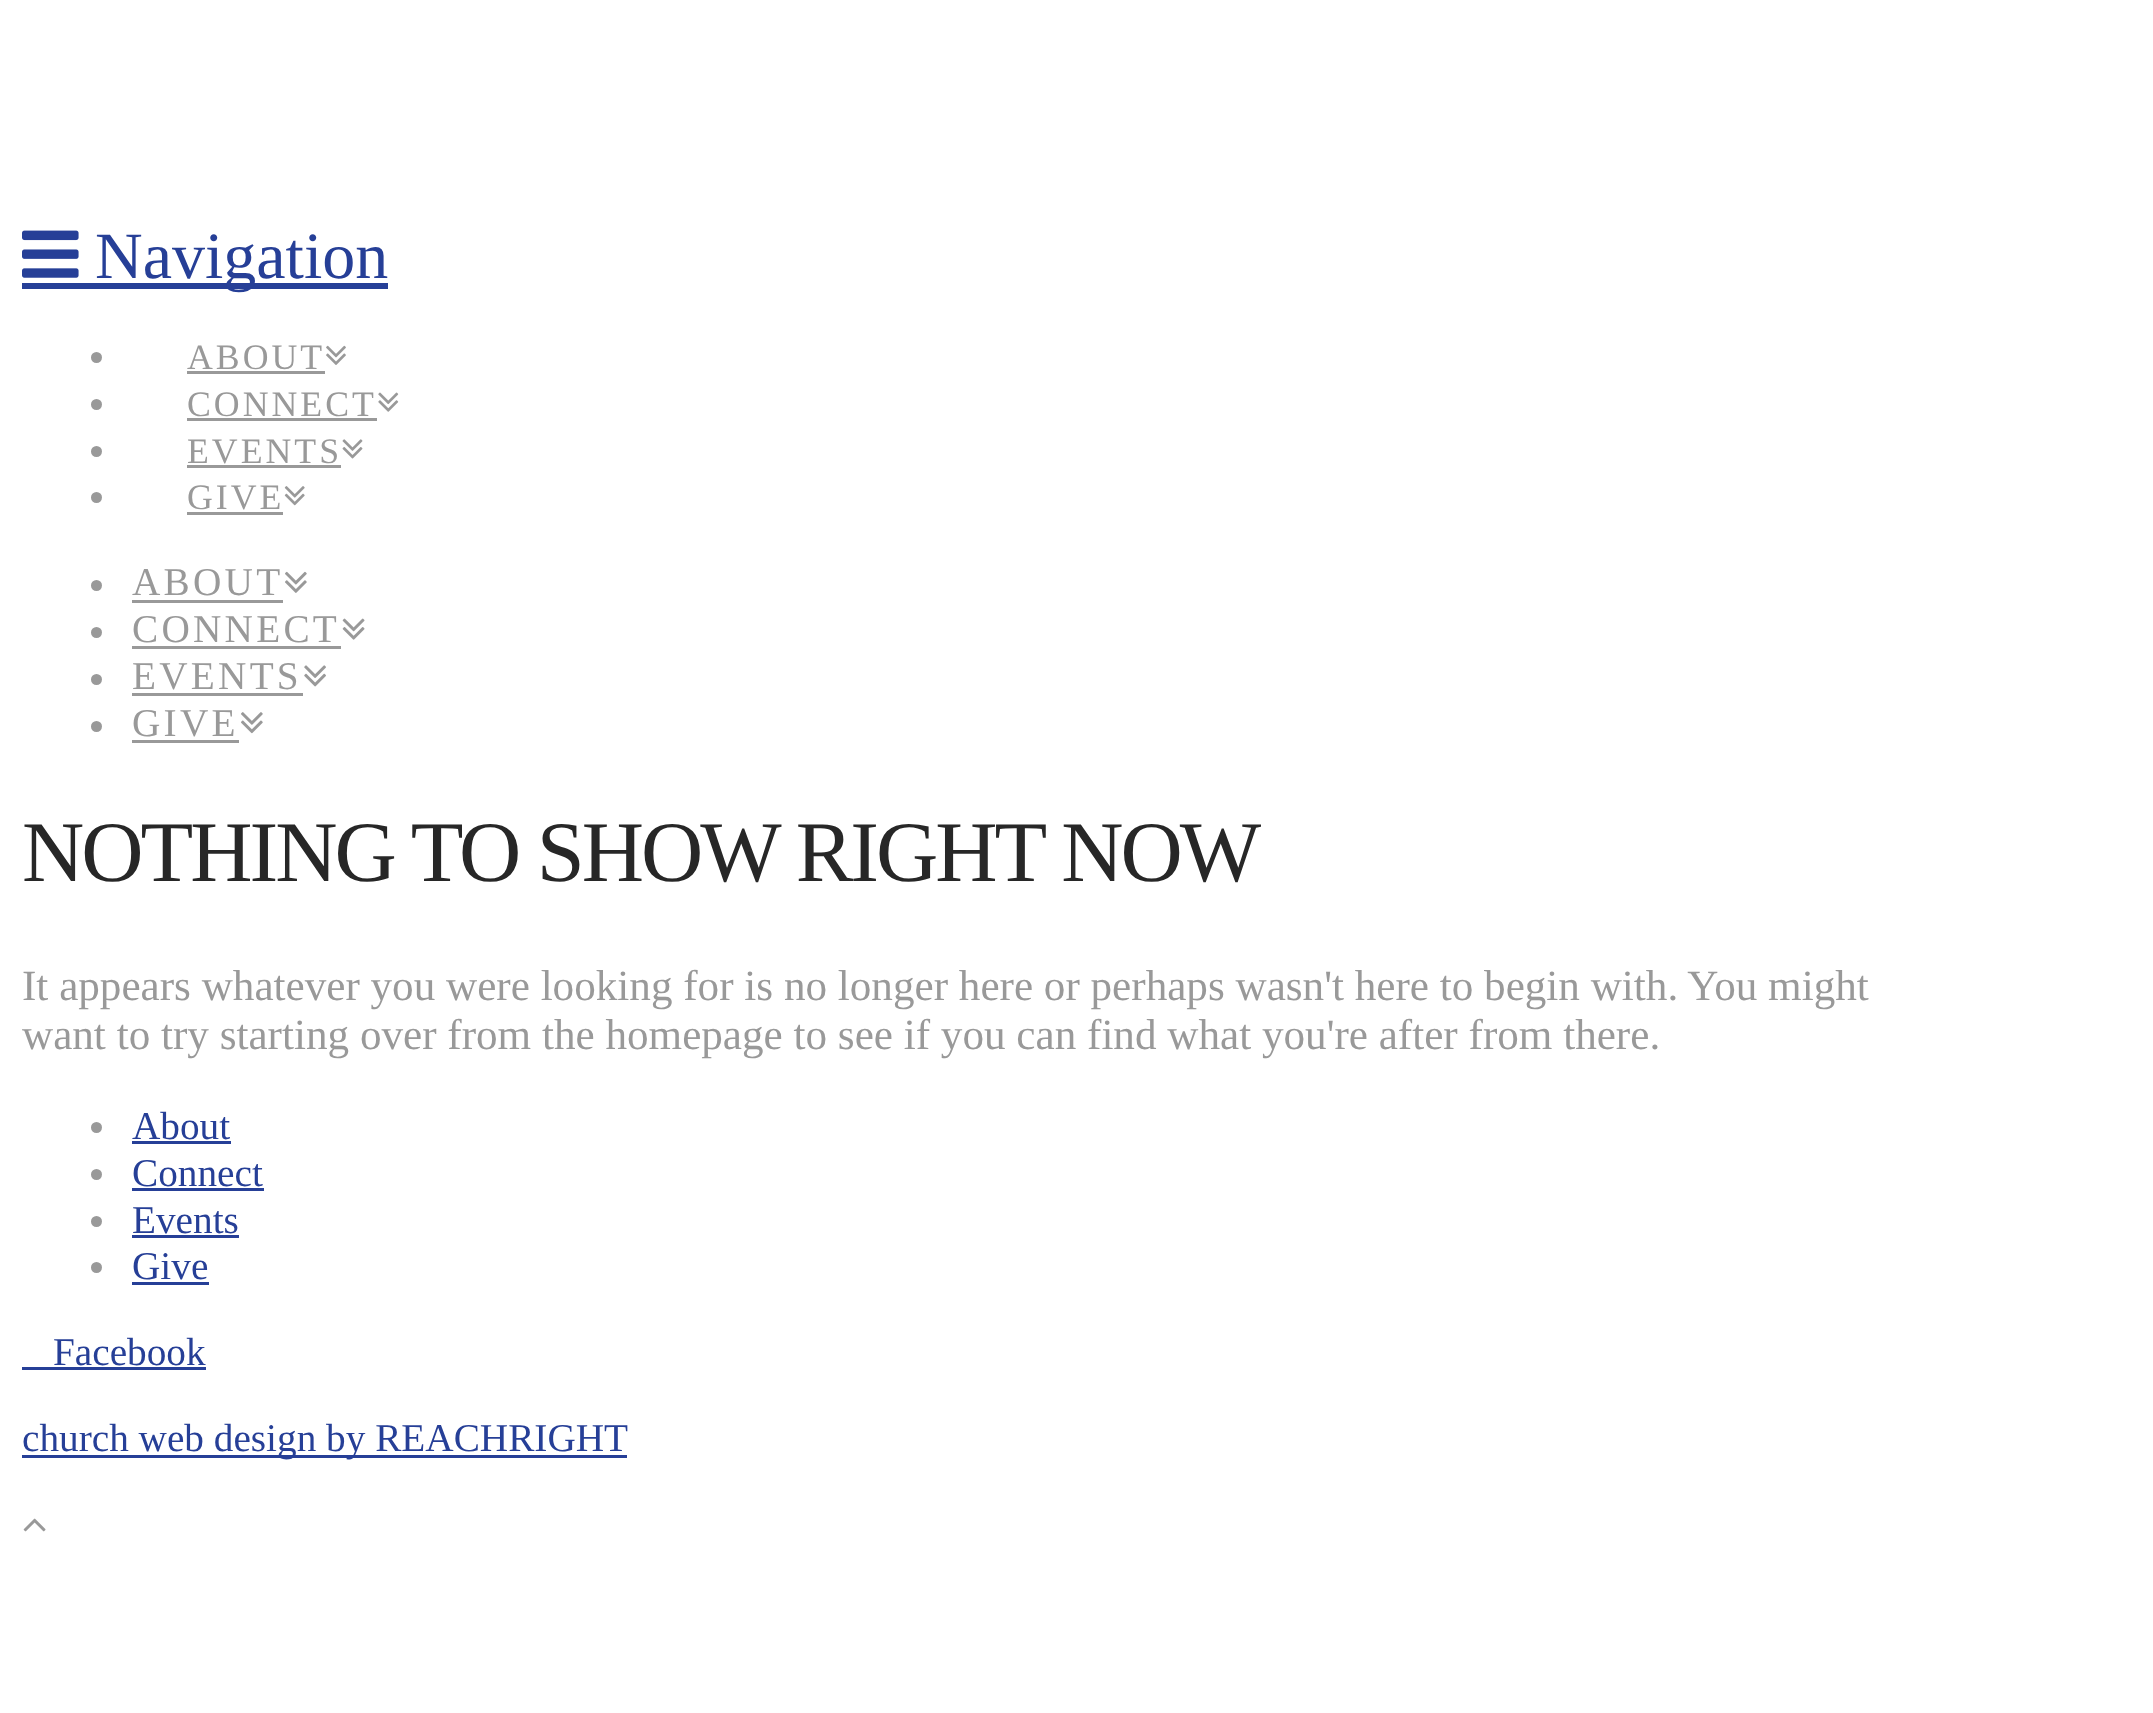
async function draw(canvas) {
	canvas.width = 2153;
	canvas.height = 1713;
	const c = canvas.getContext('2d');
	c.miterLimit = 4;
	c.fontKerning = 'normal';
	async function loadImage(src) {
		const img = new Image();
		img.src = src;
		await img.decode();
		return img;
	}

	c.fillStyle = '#fff';
	c.fillRect(0, 0, 2153, 1713);
	c.fillStyle = '#263f97';
	c.fillRect(22, 283, 366, 6);
	c.drawImage(await loadImage('img1.png'), 22, 230, 57, 48);
	c.font = '66px Liberation Serif';
	c.fillText('Navigation', 95, 278);
	c.fillStyle = '#999';
	c.beginPath();
	c.arc(96.5, 357.5, 5.5, 0, 2 * Math.PI);
	c.fill();
	c.letterSpacing = '3px';
	c.font = '35.75px Liberation Serif';
	c.fillText('ABOUT', 187, 369);
	c.fillRect(187, 371, 138, 3);
	c.drawImage(await loadImage('img2.png'), 326, 345, 20, 20);
	c.beginPath();
	c.arc(96.5, 404.5, 5.5, 0, 2 * Math.PI);
	c.fill();
	c.fillText('CONNECT', 187, 416);
	c.fillRect(187, 418, 190, 3);
	c.drawImage(await loadImage('img3.png'), 378, 392, 21, 20);
	c.beginPath();
	c.arc(96.5, 451.5, 5.5, 0, 2 * Math.PI);
	c.fill();
	c.fillText('EVENTS', 187, 463);
	c.fillRect(187, 465, 154, 3);
	c.drawImage(await loadImage('img4.png'), 342, 439, 21, 20);
	c.beginPath();
	c.arc(96.5, 497.5, 5.5, 0, 2 * Math.PI);
	c.fill();
	c.fillText('GIVE', 187, 509);
	c.fillRect(187, 512, 96, 3);
	c.drawImage(await loadImage('img5.png'), 284, 486, 21, 20);
	c.beginPath();
	c.arc(96.5, 585.5, 5.5, 0, 2 * Math.PI);
	c.fill();
	c.letterSpacing = '3.25px';
	c.font = '39.25px Liberation Serif';
	c.fillText('ABOUT', 132, 595);
	c.fillRect(132, 600, 151, 3);
	c.drawImage(await loadImage('img6.png'), 285, 571, 22, 22);
	c.beginPath();
	c.arc(96.5, 632.5, 5.5, 0, 2 * Math.PI);
	c.fill();
	c.fillText('CONNECT', 132, 642);
	c.fillRect(132, 646, 209, 3);
	c.drawImage(await loadImage('img7.png'), 342, 618, 23, 22);
	c.beginPath();
	c.arc(96.5, 679.5, 5.5, 0, 2 * Math.PI);
	c.fill();
	c.fillText('EVENTS', 132, 689);
	c.fillRect(132, 693, 171, 3);
	c.drawImage(await loadImage('img8.png'), 304, 665, 22, 22);
	c.beginPath();
	c.arc(96.5, 726.5, 5.5, 0, 2 * Math.PI);
	c.fill();
	c.fillText('GIVE', 132, 736);
	c.fillRect(132, 740, 107, 3);
	c.drawImage(await loadImage('img9.png'), 241, 712, 22, 22);
	c.letterSpacing = '-3px';
	c.font = '86.25px Liberation Serif';
	c.fillStyle = '#272727';
	c.fillText('NOTHING TO SHOW RIGHT NOW', 22, 881);
	c.letterSpacing = '0px';
	c.font = '43.15px Liberation Serif';
	c.fillStyle = '#999';
	c.fillText('It appears whatever you were looking for is no longer here or perhaps wasn\'t here to begin with. You might', 22, 1000);
	c.fillText('want to try starting over from the homepage to see if you can find what you\'re after from there.', 22, 1049);
	c.beginPath();
	c.arc(96.5, 1127.5, 5.5, 0, 2 * Math.PI);
	c.fill();
	c.font = '39.25px Liberation Serif';
	c.fillStyle = '#263f97';
	c.fillText('About', 132, 1139);
	c.fillRect(132, 1141, 99, 3);
	c.fillStyle = '#999';
	c.beginPath();
	c.arc(96.5, 1174.5, 5.5, 0, 2 * Math.PI);
	c.fill();
	c.fillStyle = '#263f97';
	c.fillText('Connect', 132, 1186);
	c.fillRect(132, 1188, 132, 3);
	c.fillStyle = '#999';
	c.beginPath();
	c.arc(96.5, 1221.5, 5.5, 0, 2 * Math.PI);
	c.fill();
	c.fillStyle = '#263f97';
	c.fillText('Events', 132, 1233);
	c.fillRect(132, 1235, 107, 3);
	c.fillStyle = '#999';
	c.beginPath();
	c.arc(96.5, 1267.5, 5.5, 0, 2 * Math.PI);
	c.fill();
	c.fillStyle = '#263f97';
	c.fillText('Give', 132, 1279);
	c.fillRect(132, 1282, 77, 3);
	c.fillText('Facebook', 53, 1365);
	c.fillRect(22, 1367, 184, 3);
	c.fillRect(22, 1455, 605, 3);
	c.fillText('church web design by REACHRIGHT', 22, 1451);
	c.drawImage(await loadImage('img10.png'), 23, 1518, 23, 14);
}

draw(document.querySelector('canvas'));
